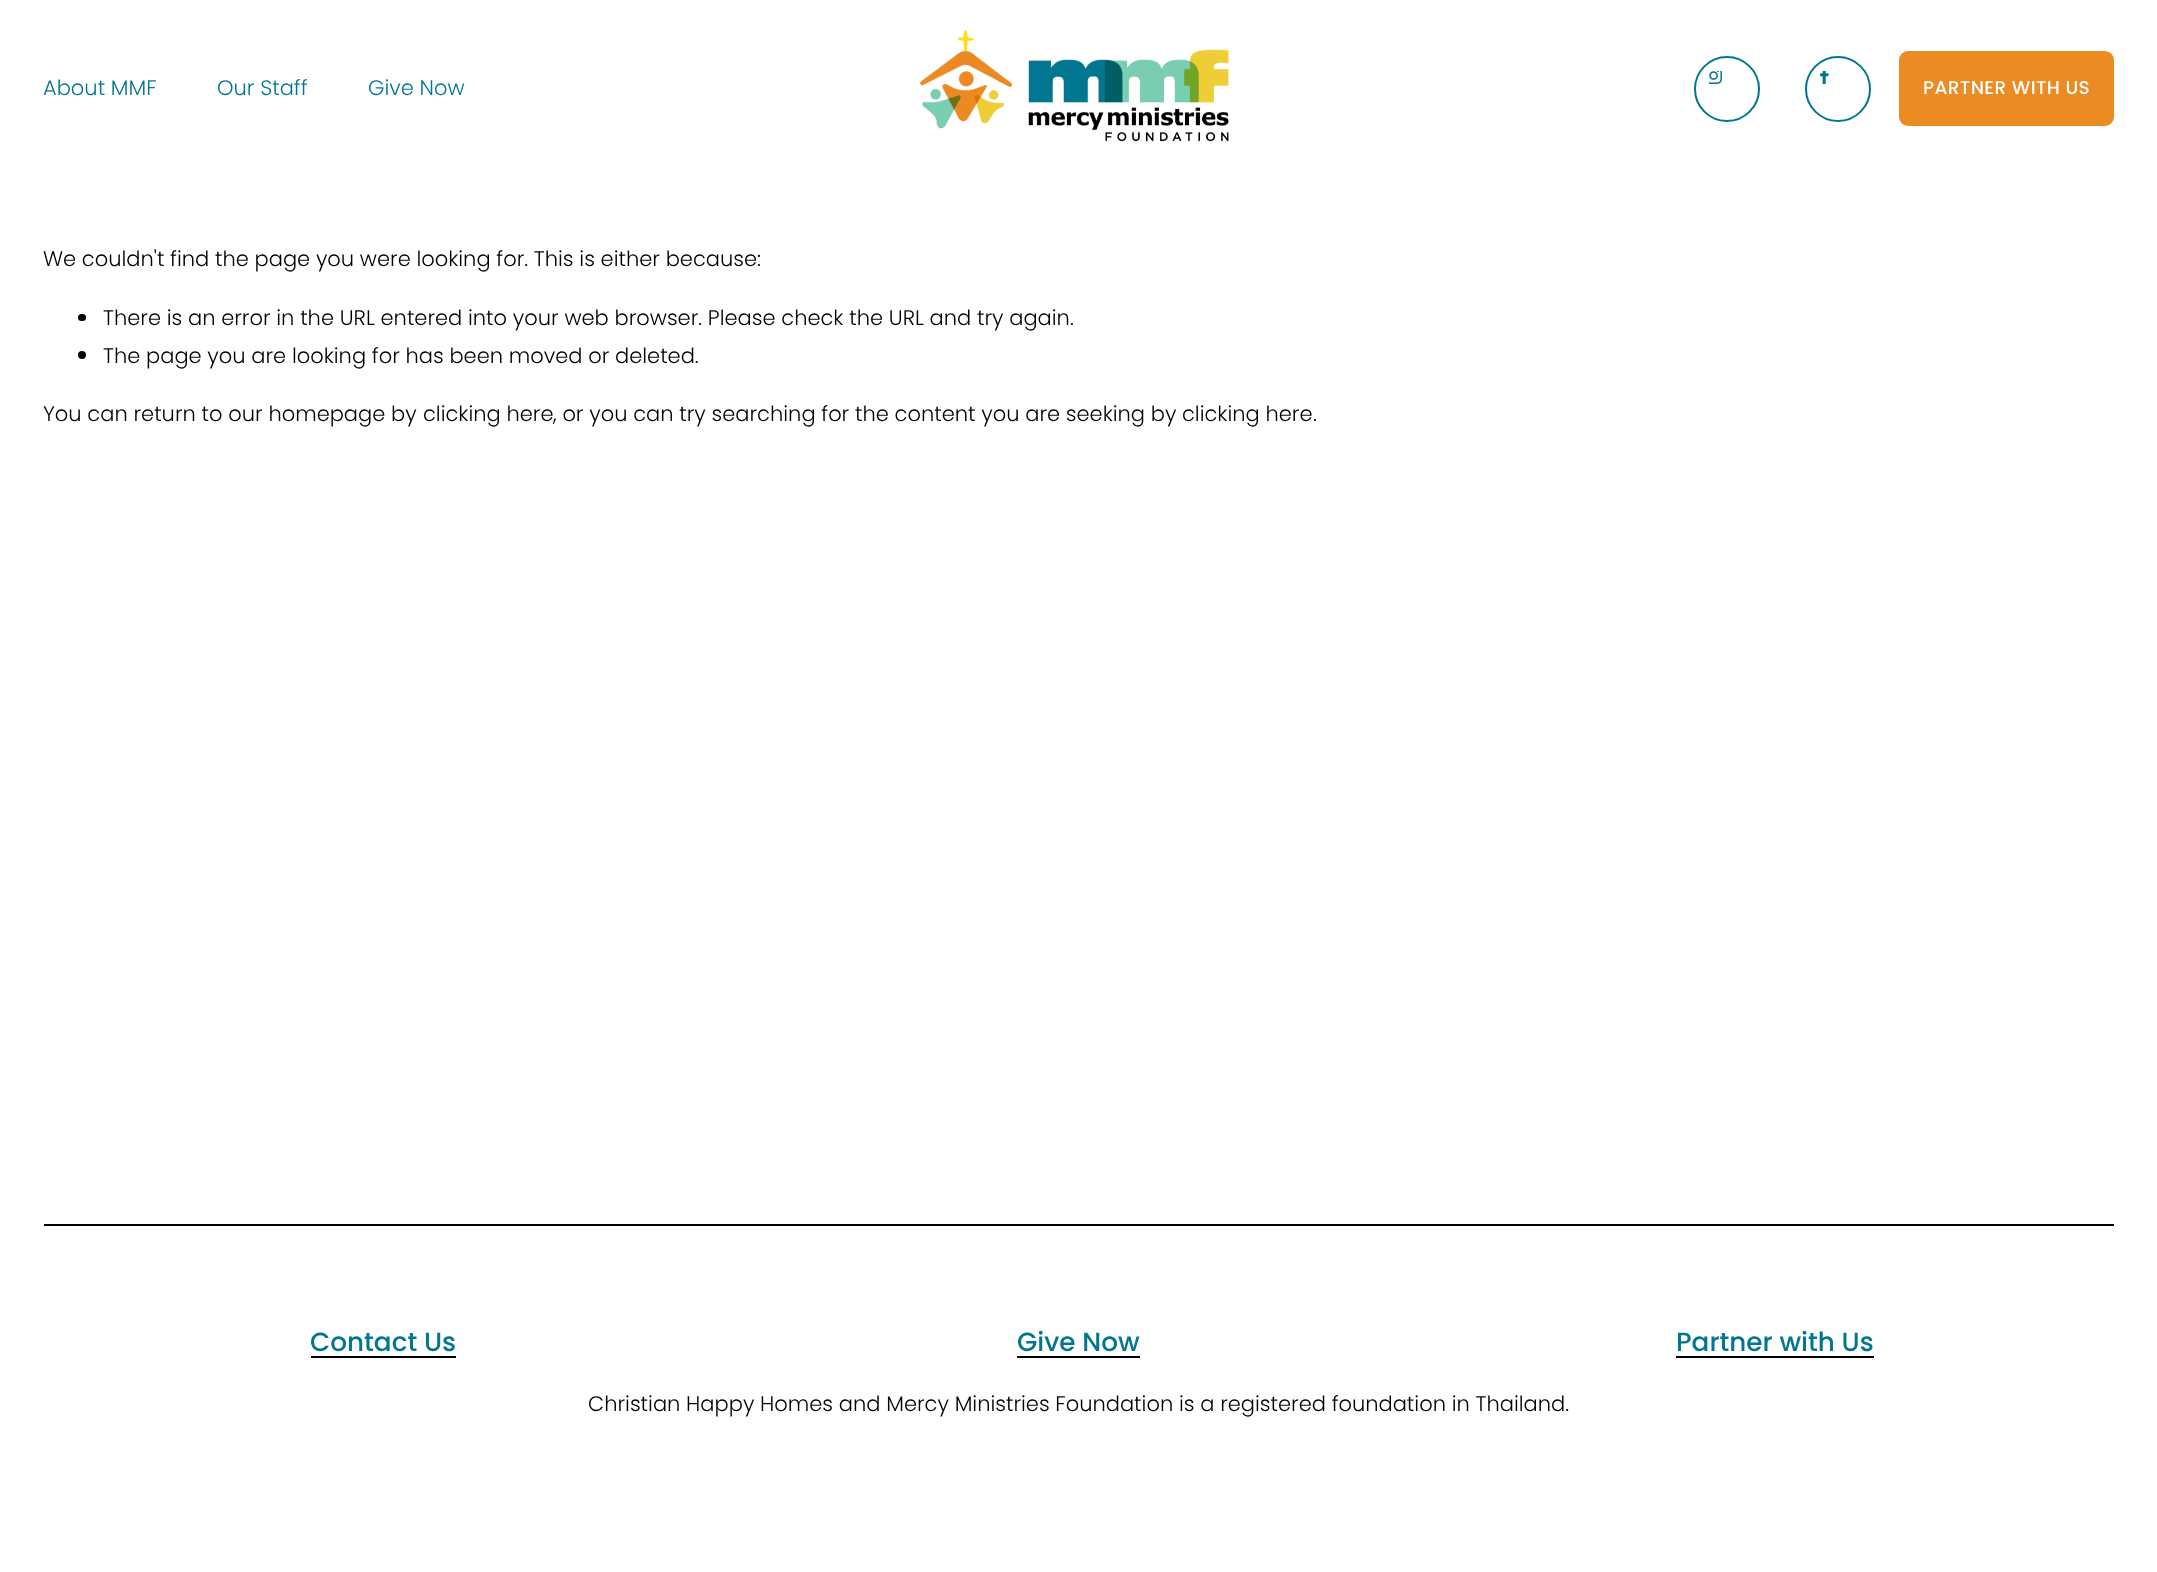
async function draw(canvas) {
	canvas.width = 2157;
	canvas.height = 1572;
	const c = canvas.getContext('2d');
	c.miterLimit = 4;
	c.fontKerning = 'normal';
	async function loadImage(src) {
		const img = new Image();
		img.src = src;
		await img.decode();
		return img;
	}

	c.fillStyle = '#fff';
	c.fillRect(0, 0, 2157, 1572);
	c.font = '300 21px Poppins';
	c.fillStyle = '#007691';
	for (const [text, x, y] of [
		['About MMF', 43, 95],
		['Our Staff', 217, 95],
		['Give Now', 368, 95],
	]) {
		c.fillText(text, x, y);
	}
	c.drawImage(await loadImage('img1.png'), 919, 30, 310, 112);
	c.beginPath();
	c.arc(1727, 89, 32, 0, 2 * Math.PI);
	c.strokeStyle = '#007691';
	c.lineWidth = 2;
	c.stroke();
	c.drawImage(await loadImage('img2.png'), 1709, 71, 13, 13);
	c.beginPath();
	c.arc(1838, 89, 32, 0, 2 * Math.PI);
	c.stroke();
	c.drawImage(await loadImage('img3.png'), 1820, 71, 9, 13);
	c.fillStyle = '#eb8b24';
	c.beginPath();
	c.roundRect(1899, 51, 215, 75, 9);
	c.fill();
	c.letterSpacing = '0.4px';
	c.font = '500 18.5px Poppins';
	c.fillStyle = '#fff';
	c.fillText('PARTNER WITH US', 1923, 94);
	c.letterSpacing = '0px';
	c.font = '300 21px Poppins';
	c.fillStyle = '#000';
	c.fillText('We couldn\'t find the page you were looking for. This is either because:', 43, 266);
	c.fillStyle = '#050505';
	c.beginPath();
	c.roundRect(78, 314, 8, 7, 3.5);
	c.fill();
	c.fillStyle = '#000';
	c.fillText('There is an error in the URL entered into your web browser. Please check the URL and try again.', 103, 325);
	c.fillStyle = '#050505';
	c.beginPath();
	c.arc(82, 355, 4, 0, 2 * Math.PI);
	c.fill();
	c.fillStyle = '#000';
	for (const [text, x, y] of [
		['The page you are looking for has been moved or deleted.', 103, 363],
		['You can return to our homepage by', 43, 421],
		['clicking here', 423, 421],
		[', or you can try searching for the content you are seeking by', 553, 421],
		['clicking here', 1182, 421],
		['.', 1313, 421],
	]) {
		c.fillText(text, x, y);
	}
	c.fillRect(44, 1224, 2070, 2);
	c.font = '500 26.25px Poppins';
	c.fillStyle = '#007691';
	c.fillText('Contact Us', 310, 1351);
	c.fillStyle = '#000';
	c.fillRect(311, 1356, 145, 2);
	c.fillStyle = '#007691';
	c.fillText('Give Now', 1017, 1351);
	c.fillStyle = '#000';
	c.fillRect(1017, 1356, 123, 2);
	c.fillStyle = '#007691';
	c.fillText('Partner with Us', 1676, 1351);
	c.fillStyle = '#000';
	c.fillRect(1676, 1356, 198, 2);
	c.font = '300 21px Poppins';
	c.fillText('Christian Happy Homes and Mercy Ministries Foundation is a registered foundation in Thailand.', 588, 1411);
}

draw(document.querySelector('canvas'));
